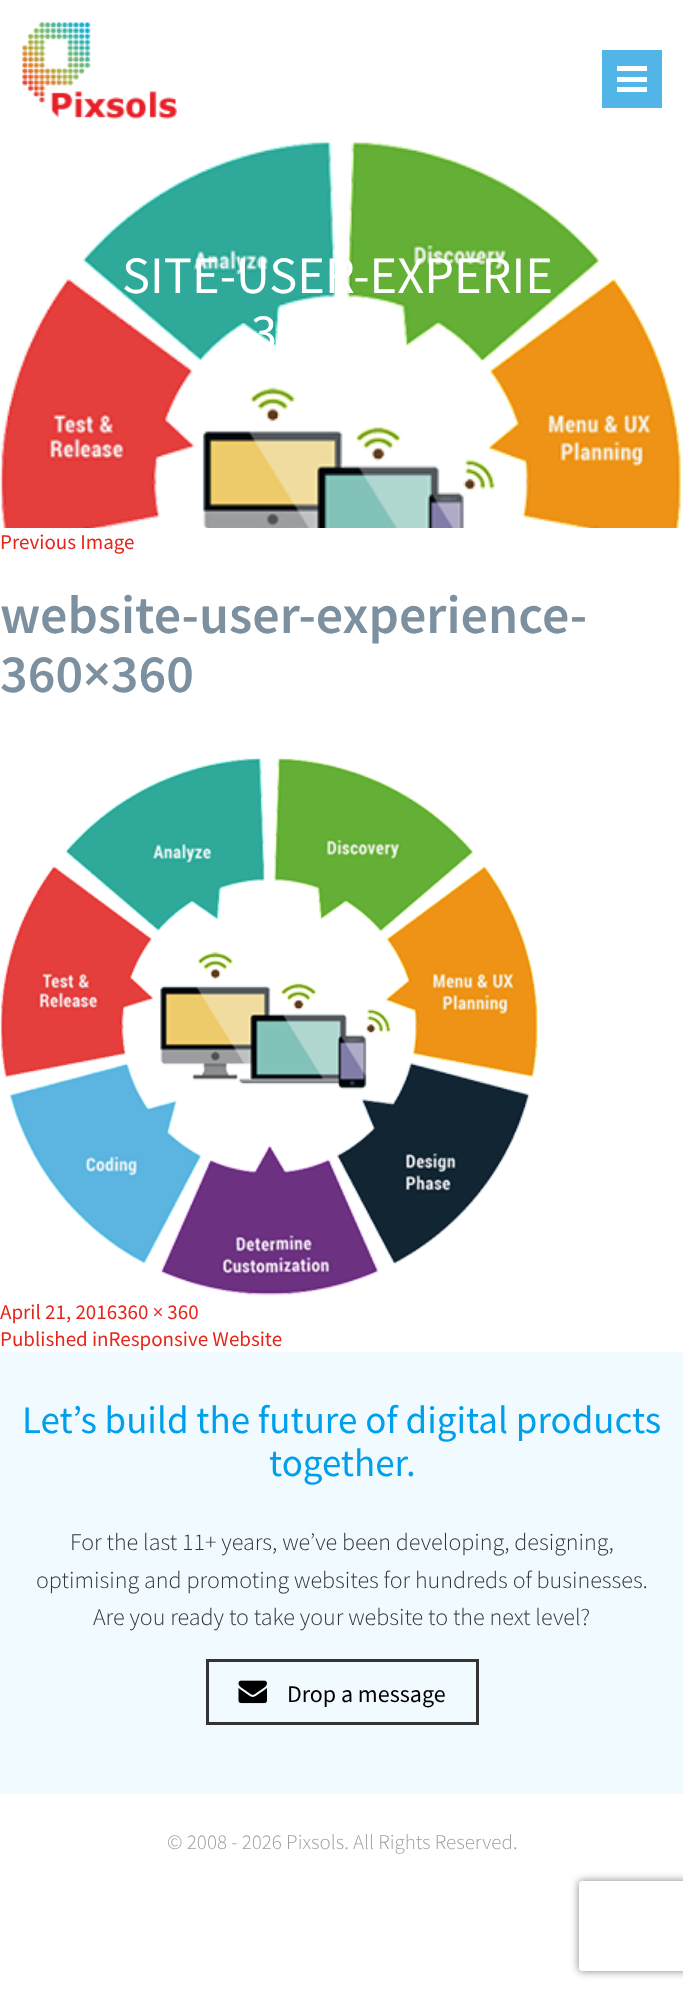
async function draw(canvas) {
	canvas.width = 683;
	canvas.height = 1992;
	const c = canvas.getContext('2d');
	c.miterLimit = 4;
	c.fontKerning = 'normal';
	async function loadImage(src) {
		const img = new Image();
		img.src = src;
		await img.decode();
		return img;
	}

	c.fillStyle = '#fff';
	c.fillRect(0, 0, 683, 1992);
	c.drawImage(await loadImage('img1.png'), 22, 22, 155, 97);
	for (const [x, y, w, h, color] of [
		[602, 50, 60, 58, '#51b6e7'],
		[617, 66, 30, 5, '#fff'],
		[617, 77, 30, 5, '#fff'],
		[617, 87, 30, 5, '#fff'],
	]) {
		c.fillStyle = color;
		c.fillRect(x, y, w, h);
	}
	c.drawImage(await loadImage('img2.png'), 0, 141, 682, 387);
	c.font = '52.5px Source Sans Pro';
	c.fillText('SITE-USER-EXPERIE', 122, 293);
	c.fillText('3', 251, 350);
	c.font = '21px Source Sans Pro';
	c.fillStyle = '#e5261c';
	c.fillText('Previous Image', 0, 549);
	c.font = '600 54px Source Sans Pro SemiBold';
	c.fillStyle = '#7c90a0';
	c.fillText('website-user-experience-', 0, 633);
	c.fillText('360×360', 0, 692);
	c.drawImage(await loadImage('img3.png'), 0, 757, 539, 539);
	c.font = '21px Source Sans Pro';
	c.fillStyle = '#e5261c';
	c.fillText('April 21, 2016360 × 360', 0, 1319);
	c.fillText('Published inResponsive Website', 0, 1346);
	c.fillStyle = '#f1faff';
	c.fillRect(0, 1352, 683, 442);
	c.font = '39px Source Sans Pro';
	c.fillStyle = '#009fec';
	c.fillText('Let’s build the future of digital products', 22, 1433);
	c.fillText('together.', 269, 1476);
	c.font = '300 24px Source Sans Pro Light';
	c.fillStyle = '#30363a';
	for (const [text, x, y] of [
		['For the last 11+ years, we’ve been developing, designing,', 70, 1550],
		['optimising and promoting websites for hundreds of businesses.', 36, 1588],
		['Are you ready to take your website to the next level?', 93, 1625],
	]) {
		c.fillText(text, x, y);
	}
	c.strokeStyle = '#343434';
	c.lineWidth = 3;
	c.strokeRect(207.5, 1660.5, 270, 63);
	c.drawImage(await loadImage('img4.png'), 238, 1680, 29, 24);
	c.font = '24px Source Sans Pro';
	c.fillStyle = '#000';
	c.fillText('Drop a message', 287, 1702);
	c.font = '300 21px Source Sans Pro Light';
	c.fillStyle = '#9e9e9e';
	c.fillText('© 2008 - 2026 Pixsols. All Rights Reserved.', 167, 1849);
	c.save();
	c.beginPath();
	c.moveTo(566, 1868);
	c.lineTo(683, 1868);
	c.lineTo(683, 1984);
	c.lineTo(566, 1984);
	c.closePath();
	c.moveTo(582, 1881);
	c.lineTo(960, 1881);
	c.bezierCurveTo(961.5, 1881, 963, 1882.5, 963, 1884);
	c.lineTo(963, 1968);
	c.bezierCurveTo(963, 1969.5, 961.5, 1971, 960, 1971);
	c.lineTo(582, 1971);
	c.bezierCurveTo(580.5, 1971, 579, 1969.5, 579, 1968);
	c.lineTo(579, 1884);
	c.bezierCurveTo(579, 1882.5, 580.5, 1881, 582, 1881);
	c.closePath();
	c.clip('evenodd');
	c.fillStyle = '#808080';
	c.filter = 'blur(4px)';
	c.beginPath();
	c.roundRect(579, 1881, 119, 90, 3);
	c.fill();
	c.filter = 'none';
	c.restore();
}

draw(document.querySelector('canvas'));
